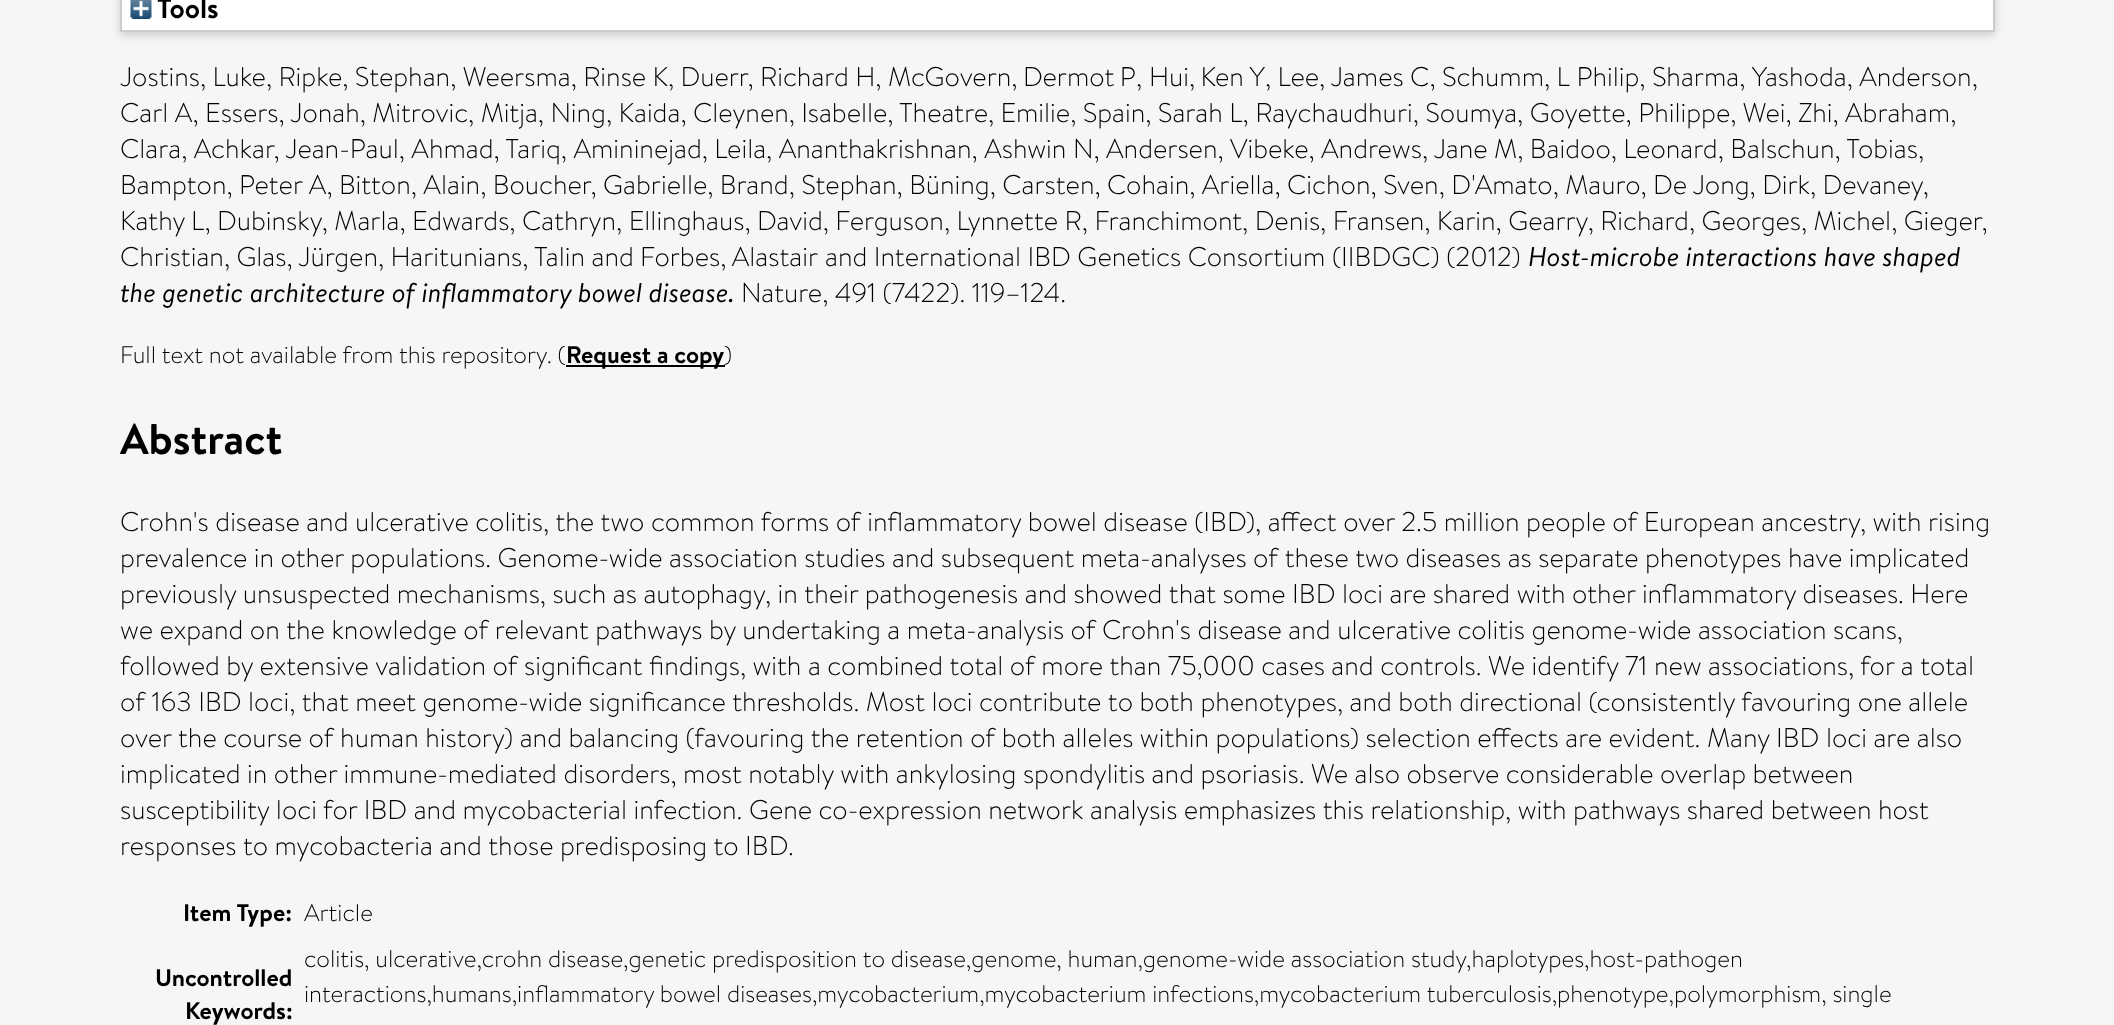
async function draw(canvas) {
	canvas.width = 2114;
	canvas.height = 1025;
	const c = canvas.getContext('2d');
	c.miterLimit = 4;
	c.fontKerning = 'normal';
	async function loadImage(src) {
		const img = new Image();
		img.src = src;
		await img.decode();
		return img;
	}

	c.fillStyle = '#f6f6f6';
	c.fillRect(0, 0, 2114, 1025);
	c.fillStyle = '#6464644d';
	c.filter = 'blur(4.5px)';
	c.beginPath();
	c.rect(120, -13, 1875, 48);
	c.fill();
	c.filter = 'none';
	c.fillStyle = '#fff';
	c.beginPath();
	c.rect(121, -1, 1873, 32);
	c.fill();
	c.strokeStyle = '#ccc';
	c.lineWidth = 2;
	c.stroke();
	c.drawImage(await loadImage('img1.png'), 130, 0, 22, 19);
	c.font = 'bold 28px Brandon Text';
	c.fillStyle = '#000';
	c.fillText('Tools', 157, 18);
	c.font = '300 27px Brandon Text';
	c.fillText('Jostins, Luke, Ripke, Stephan, Weersma, Rinse K, Duerr, Richard H,', 120, 86);
	c.wordSpacing = '-1px';
	c.fillText('McGovern, Dermot P', 888, 86);
	c.wordSpacing = '0px';
	c.fillText(',', 1136, 86);
	c.wordSpacing = '-1px';
	c.fillText('Hui, Ken Y', 1149, 86);
	c.wordSpacing = '0px';
	for (const [text, x, y] of [
		[', Lee, James C, Schumm, L Philip, Sharma, Yashoda, Anderson,', 1265, 86],
		['Carl A, Essers, Jonah, Mitrovic, Mitja, Ning, Kaida, Cleynen, Isabelle,', 120, 122],
		['Theatre, Emilie, Spain, Sarah L, Raychaudhuri, Soumya, Goyette, Philippe, Wei, Zhi, Abraham,', 899, 122],
		['Clara, Achkar, Jean-Paul, Ahmad, Tariq, Amininejad, Leila, Ananthakrishnan, Ashwin N, Andersen, Vibeke, Andrews, Jane M, Baidoo, Leonard, Balschun, Tobias,', 120, 158],
		['Bampton, Peter A, Bitton, Alain, Boucher, Gabrielle, Brand, Stephan, Büning, Carsten, Cohain, Ariella, Cichon, Sven, D\'Amato, Mauro, De Jong, Dirk, Devaney,', 120, 194],
		['Kathy L, Dubinsky, Marla, Edwards, Cathryn, Ellinghaus, David, Ferguson, Lynnette R, Franchimont, Denis, Fransen, Karin, Gearry, Richard, Georges, Michel, Gieger,', 120, 230],
		['Christian, Glas, Jürgen, Haritunians, Talin and', 120, 266],
	]) {
		c.fillText(text, x, y);
	}
	c.wordSpacing = '-1px';
	c.fillText('Forbes, Alastair', 640, 266);
	c.wordSpacing = '0px';
	c.fillText('and International IBD Genetics Consortium (IIBDGC) (2012)', 825, 266);
	c.font = 'italic 27px Brandon Text';
	c.fillText('Host-microbe interactions have shaped', 1528, 266);
	c.fillText('the genetic architecture of inflammatory bowel disease.', 120, 302);
	c.font = '300 27px Brandon Text';
	c.fillText('Nature, 491 (7422). 119–124.', 741, 302);
	c.font = '300 24px Brandon Text';
	c.fillText('Full text not available from this repository. (', 120, 363);
	c.fillRect(566, 365, 159, 2);
	c.font = 'bold 24px Brandon Text';
	c.fillText('Request a copy', 566, 363);
	c.font = '300 24px Brandon Text';
	c.fillText(')', 724, 363);
	c.font = 'bold 43px Brandon Text';
	c.fillText('Abstract', 120, 454);
	c.font = '300 27px Brandon Text';
	for (const [text, x, y] of [
		['Crohn\'s disease and ulcerative colitis, the two common forms of inflammatory bowel disease (IBD), affect over 2.5 million people of European ancestry, with rising', 120, 531],
		['prevalence in other populations. Genome-wide association studies and subsequent meta-analyses of these two diseases as separate phenotypes have implicated', 120, 567],
		['previously unsuspected mechanisms, such as autophagy, in their pathogenesis and showed that some IBD loci are shared with other inflammatory diseases. Here', 120, 603],
		['we expand on the knowledge of relevant pathways by undertaking a meta-analysis of Crohn\'s disease and ulcerative colitis genome-wide association scans,', 120, 639],
		['followed by extensive validation of significant findings, with a combined total of more than 75,000 cases and controls. We identify 71 new associations, for a total', 120, 675],
		['of 163 IBD loci, that meet genome-wide significance thresholds. Most loci contribute to both phenotypes, and both directional (consistently favouring one allele', 120, 711],
		['over the course of human history) and balancing (favouring the retention of both alleles within populations) selection effects are evident. Many IBD loci are also', 120, 747],
		['implicated in other immune-mediated disorders, most notably with ankylosing spondylitis and psoriasis. We also observe considerable overlap between', 120, 783],
		['susceptibility loci for IBD and mycobacterial infection. Gene co-expression network analysis emphasizes this relationship, with pathways shared between host', 120, 819],
		['responses to mycobacteria and those predisposing to IBD.', 120, 855],
	]) {
		c.fillText(text, x, y);
	}
	c.font = 'bold 24px Brandon Text';
	c.fillText('Item Type:', 183, 921);
	c.font = '300 24px Brandon Text';
	c.fillText('Article', 304, 921);
	c.font = 'bold 24px Brandon Text';
	c.fillText('Uncontrolled', 155, 986);
	c.fillText('Keywords:', 185, 1019);
	c.font = '300 24px Brandon Text';
	c.fillText('colitis, ulcerative,crohn disease,genetic predisposition to disease,genome, human,genome-wide association study,haplotypes,host-pathogen', 304, 967);
	c.fillText('interactions,humans,inflammatory bowel diseases,mycobacterium,mycobacterium infections,mycobacterium tuberculosis,phenotype,polymorphism, single', 304, 1002);
}

draw(document.querySelector('canvas'));
